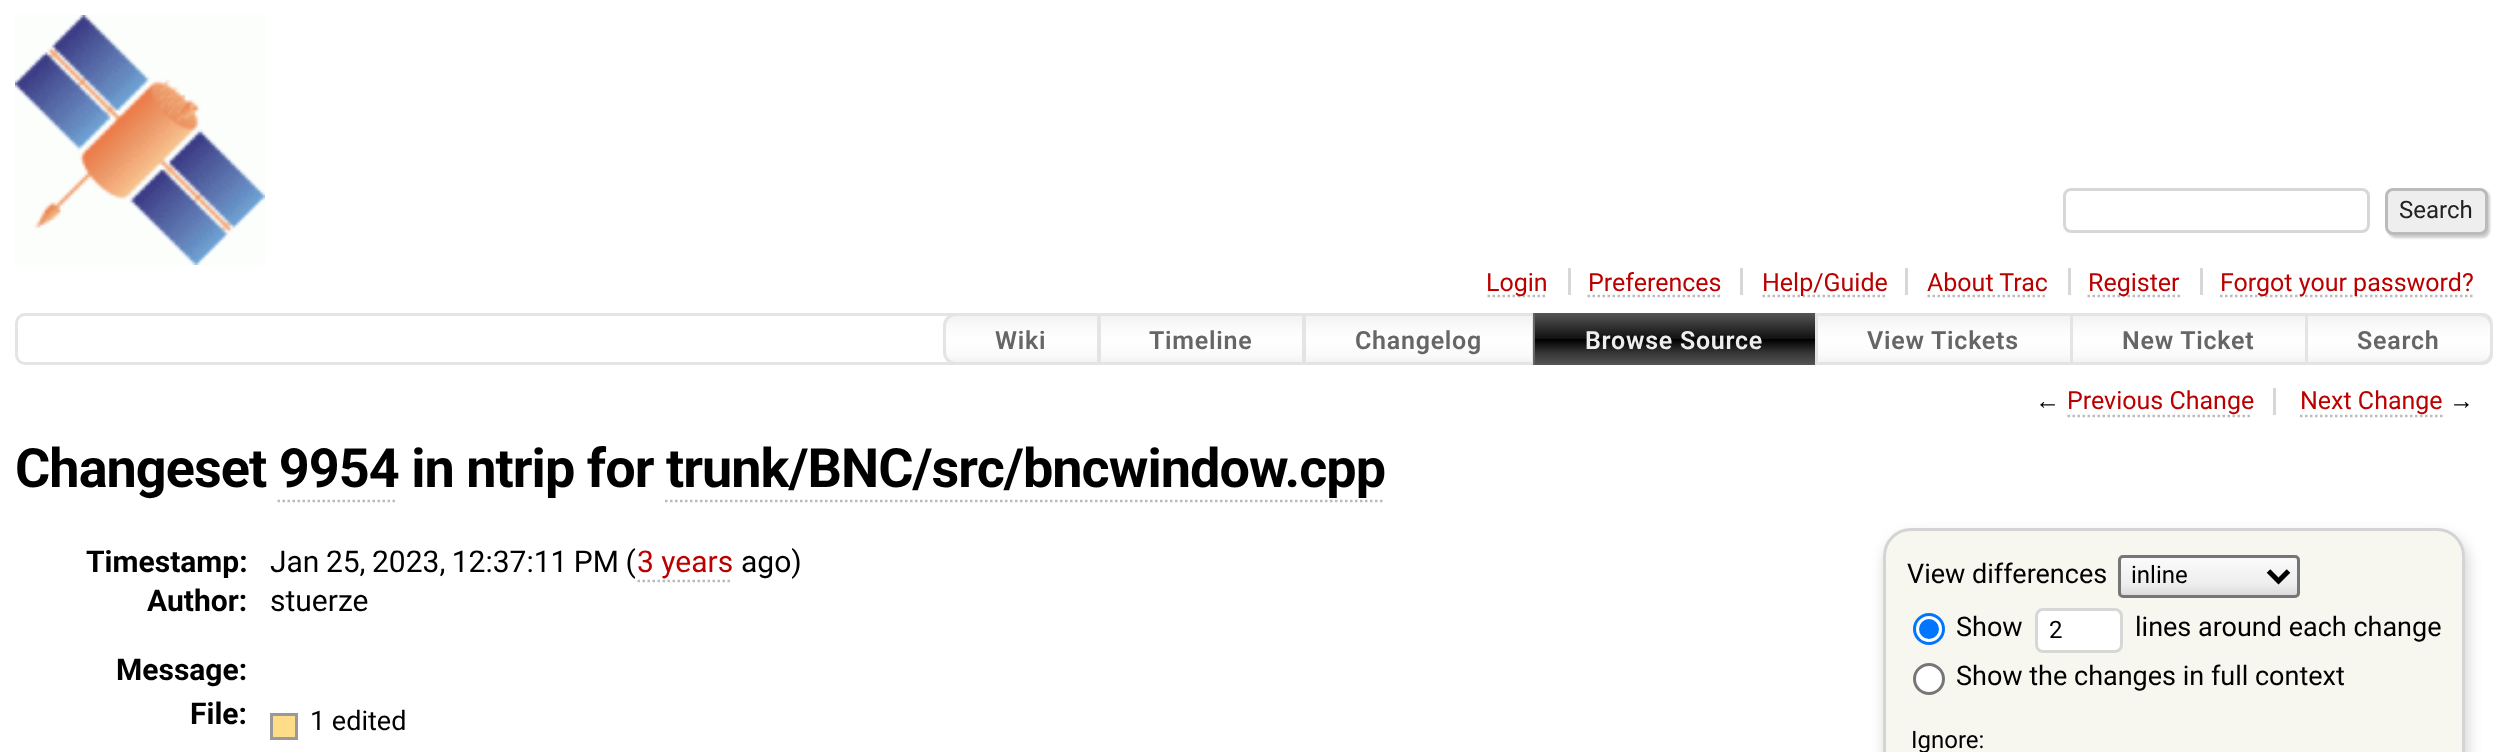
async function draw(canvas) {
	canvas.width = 2507;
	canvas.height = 752;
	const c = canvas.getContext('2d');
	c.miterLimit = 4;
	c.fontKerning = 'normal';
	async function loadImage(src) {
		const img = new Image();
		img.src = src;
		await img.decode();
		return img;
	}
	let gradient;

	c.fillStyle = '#fff';
	c.fillRect(0, 0, 2507, 752);
	c.drawImage(await loadImage('img1.png'), 15, 15, 250, 250);
	c.beginPath();
	c.roundRect(2064.5, 189.5, 304, 42, 6.5);
	c.strokeStyle = '#d7d7d7';
	c.lineWidth = 3;
	c.stroke();
	c.fillStyle = '#ccc';
	c.filter = 'blur(1px)';
	c.beginPath();
	c.roundRect(2388, 190, 102, 48, 8);
	c.fill();
	c.filter = 'none';
	c.fillStyle = '#eee';
	c.beginPath();
	c.roundRect(2386.5, 189.5, 100, 44, 6.5);
	c.fill();
	c.strokeStyle = '#bbb';
	c.stroke();
	c.font = '24px Roboto';
	c.fillStyle = '#222';
	c.fillText('Search', 2399, 218);
	c.fillStyle = '#d7d7d7';
	c.fillRect(1568, 268, 3, 27);
	c.beginPath();
	c.moveTo(1487.5, 296);
	c.lineTo(1547.5, 296);
	c.lineWidth = 2.5;
	c.setLineDash([2.5, 2.5]);
	c.stroke();
	c.font = '25px Roboto';
	c.fillStyle = '#b00';
	c.fillText('Login', 1486, 291);
	c.fillStyle = '#d7d7d7';
	c.fillRect(1740, 268, 3, 27);
	c.fillStyle = '#b00';
	c.fillText('Preferences', 1588, 291);
	c.beginPath();
	c.moveTo(1587.5, 296);
	c.lineTo(1722.5, 296);
	c.stroke();
	c.fillStyle = '#d7d7d7';
	c.fillRect(1905, 268, 3, 27);
	c.beginPath();
	c.moveTo(1762.5, 296);
	c.lineTo(1887.5, 296);
	c.stroke();
	c.fillStyle = '#b00';
	c.fillText('Help/Guide', 1762, 291);
	c.fillStyle = '#d7d7d7';
	c.fillRect(2068, 268, 3, 27);
	c.fillStyle = '#b00';
	c.fillText('About Trac', 1927, 291);
	c.beginPath();
	c.moveTo(1927.5, 296);
	c.lineTo(2047.5, 296);
	c.stroke();
	c.fillStyle = '#d7d7d7';
	c.fillRect(2200, 268, 3, 27);
	c.beginPath();
	c.moveTo(2087.5, 296);
	c.lineTo(2180, 296);
	c.stroke();
	c.fillStyle = '#b00';
	c.fillText('Register', 2088, 291);
	c.beginPath();
	c.moveTo(2220, 296);
	c.lineTo(2475, 296);
	c.stroke();
	c.fillText('Forgot your password?', 2220, 291);
	c.beginPath();
	c.roundRect(16.5, 314.5, 2475, 49, 8.5);
	c.strokeStyle = '#e4e4e4';
	c.lineWidth = 3;
	c.setLineDash([]);
	c.stroke();
	c.save();
	c.beginPath();
	c.roundRect(943, 313, 157, 52, [13, 0, 0, 13]);
	c.clip();
	gradient = c.createLinearGradient(1021, 315, 1021, 363);
	gradient.addColorStop(0, '#f2f2f2');
	gradient.addColorStop(0.25, '#fafafa');
	gradient.addColorStop(0.49, '#fefefe');
	gradient.addColorStop(0.51, '#fff');
	gradient.addColorStop(0.85, '#fafafa');
	gradient.addColorStop(1, '#f2f2f2');
	c.fillStyle = gradient;
	c.fillRect(943, 315, 154, 48);
	c.restore();
	c.beginPath();
	c.roundRect(944.5, 314.5, 154, 49, [11.5, 0, 0, 11.5]);
	c.stroke();
	c.letterSpacing = '0.75px';
	c.font = '600 25px Roboto';
	c.fillStyle = '#666';
	c.fillText('Wiki', 995, 349);
	gradient = c.createLinearGradient(1201, 315, 1201, 363);
	gradient.addColorStop(0, '#f2f2f2');
	gradient.addColorStop(0.25, '#fafafa');
	gradient.addColorStop(0.49, '#fefefe');
	gradient.addColorStop(0.51, '#fff');
	gradient.addColorStop(0.85, '#fafafa');
	gradient.addColorStop(1, '#f2f2f2');
	c.fillStyle = gradient;
	c.fillRect(1101, 316, 201, 46);
	c.strokeRect(1099.5, 314.5, 204, 49);
	c.fillStyle = '#666';
	c.fillText('Timeline', 1149, 349);
	gradient = c.createLinearGradient(1419, 315, 1419, 363);
	gradient.addColorStop(0, '#f2f2f2');
	gradient.addColorStop(0.25, '#fafafa');
	gradient.addColorStop(0.49, '#fefefe');
	gradient.addColorStop(0.51, '#fff');
	gradient.addColorStop(0.85, '#fafafa');
	gradient.addColorStop(1, '#f2f2f2');
	c.fillStyle = gradient;
	c.fillRect(1306, 316, 226, 46);
	c.strokeRect(1304.5, 314.5, 229, 49);
	c.fillStyle = '#666';
	c.fillText('Changelog', 1355, 349);
	c.strokeStyle = '#666';
	c.strokeRect(1534.5, 314.5, 282, 49);
	gradient = c.createLinearGradient(1675, 313, 1675, 365);
	gradient.addColorStop(0, '#555');
	gradient.addColorStop(0.25, '#333');
	gradient.addColorStop(0.49, '#111');
	gradient.addColorStop(0.51, '#000');
	gradient.addColorStop(0.75, '#333');
	gradient.addColorStop(1, '#555');
	c.fillStyle = gradient;
	c.fillRect(1535, 313, 280, 52);
	c.fillStyle = '#eee';
	c.fillText('Browse Source', 1585, 349);
	gradient = c.createLinearGradient(1944, 315, 1944, 363);
	gradient.addColorStop(0, '#f2f2f2');
	gradient.addColorStop(0.25, '#fafafa');
	gradient.addColorStop(0.49, '#fefefe');
	gradient.addColorStop(0.51, '#fff');
	gradient.addColorStop(0.85, '#fafafa');
	gradient.addColorStop(1, '#f2f2f2');
	c.fillStyle = gradient;
	c.fillRect(1818, 316, 252, 46);
	c.strokeStyle = '#e4e4e4';
	c.strokeRect(1816.5, 314.5, 255, 49);
	c.fillStyle = '#666';
	c.fillText('View Tickets', 1867, 349);
	gradient = c.createLinearGradient(2189, 315, 2189, 363);
	gradient.addColorStop(0, '#f2f2f2');
	gradient.addColorStop(0.25, '#fafafa');
	gradient.addColorStop(0.49, '#fefefe');
	gradient.addColorStop(0.51, '#fff');
	gradient.addColorStop(0.85, '#fafafa');
	gradient.addColorStop(1, '#f2f2f2');
	c.fillStyle = gradient;
	c.fillRect(2073, 316, 232, 46);
	c.strokeRect(2071.5, 314.5, 235, 49);
	c.fillStyle = '#666';
	c.fillText('New Ticket', 2122, 349);
	c.save();
	c.beginPath();
	c.roundRect(2305, 313, 188, 52, [0, 13, 13, 0]);
	c.clip();
	gradient = c.createLinearGradient(2399, 315, 2399, 363);
	gradient.addColorStop(0, '#f2f2f2');
	gradient.addColorStop(0.25, '#fafafa');
	gradient.addColorStop(0.49, '#fefefe');
	gradient.addColorStop(0.51, '#fff');
	gradient.addColorStop(0.85, '#fafafa');
	gradient.addColorStop(1, '#f2f2f2');
	c.fillStyle = gradient;
	c.fillRect(2308, 315, 185, 48);
	c.restore();
	c.beginPath();
	c.roundRect(2306.5, 314.5, 185, 49, [0, 11.5, 11.5, 0]);
	c.stroke();
	c.fillText('Search', 2357, 349);
	c.fillStyle = '#d7d7d7';
	c.fillRect(2273, 388, 3, 27);
	c.letterSpacing = '0px';
	c.font = '25px Liberation Sans';
	c.fillStyle = '#000';
	c.fillText('←', 2035, 409);
	c.beginPath();
	c.moveTo(2067.5, 416);
	c.lineTo(2252.5, 416);
	c.strokeStyle = '#bbb';
	c.lineWidth = 2.5;
	c.setLineDash([2.5, 2.5]);
	c.stroke();
	c.font = '25px Roboto';
	c.fillStyle = '#b00';
	c.fillText('Previous Change', 2067, 409);
	c.beginPath();
	c.moveTo(2300, 416);
	c.lineTo(2442.5, 416);
	c.stroke();
	c.fillText('Next Change', 2300, 409);
	c.font = '25px Liberation Sans';
	c.fillStyle = '#000';
	c.fillText('→', 2449, 409);
	c.letterSpacing = '-0.97px';
	c.font = 'bold 54px Roboto';
	c.fillText('Changeset 9954 in ntrip for trunk/BNC/src/bncwindow.cpp', 15, 487);
	c.beginPath();
	c.moveTo(277.5, 501);
	c.lineTo(397.5, 501);
	c.stroke();
	c.beginPath();
	c.moveTo(665, 501);
	c.lineTo(1385, 501);
	c.stroke();
	c.letterSpacing = '0px';
	c.font = 'bold 30px Roboto';
	c.fillText('Timestamp:', 86, 572);
	c.wordSpacing = '-1px';
	c.font = '30px Roboto';
	c.fillText('Jan 25, 2023, 12:37:11 PM (', 270, 572);
	c.wordSpacing = '0px';
	c.fillStyle = '#b00';
	c.fillText('3 years', 637, 572);
	c.beginPath();
	c.moveTo(637.5, 581);
	c.lineTo(732.5, 581);
	c.stroke();
	c.fillStyle = '#000';
	c.fillText('ago)', 741, 572);
	c.font = 'bold 30px Roboto';
	c.fillText('Author:', 147, 611);
	c.font = '30px Roboto';
	c.fillText('stuerze', 270, 611);
	c.font = 'bold 30px Roboto';
	c.fillText('Message:', 116, 680);
	c.fillText('File:', 190, 724);
	c.fillStyle = '#fd8';
	c.beginPath();
	c.rect(271.5, 714.5, 25, 24);
	c.fill();
	c.strokeStyle = '#999';
	c.lineWidth = 3;
	c.setLineDash([]);
	c.stroke();
	c.font = '27px Roboto';
	c.fillStyle = '#000';
	c.fillText('1 edited', 310, 730);
	c.fillStyle = '#d4d4d4';
	c.filter = 'blur(7px)';
	c.beginPath();
	c.roundRect(1885, 535, 583, 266, 28);
	c.fill();
	c.filter = 'none';
	c.fillStyle = '#f7f7f0';
	c.beginPath();
	c.roundRect(1884.5, 529.5, 579, 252, 26.5);
	c.fill();
	c.strokeStyle = '#d4d4d4';
	c.stroke();
	c.fillStyle = '#000';
	c.fillText('View differences', 1907, 583);
	c.save();
	c.beginPath();
	c.roundRect(2118, 555, 182, 43, 5);
	c.clip();
	gradient = c.createLinearGradient(2209, 595, 2209, 558);
	gradient.addColorStop(0, '#dbdbdb');
	gradient.addColorStop(0.3, '#eee');
	gradient.addColorStop(1, '#fbfbfb');
	c.fillStyle = gradient;
	c.fillRect(2118, 558, 182, 37);
	c.restore();
	c.beginPath();
	c.roundRect(2119.5, 556.5, 179, 40, 3.5);
	c.strokeStyle = '#767676';
	c.stroke();
	c.beginPath();
	c.moveTo(2268.5, 571);
	c.lineTo(2278.5, 581);
	c.lineTo(2288.5, 571);
	c.strokeStyle = '#000';
	c.lineWidth = 5;
	c.stroke();
	c.font = '24px Roboto';
	c.fillText('inline', 2131, 583);
	c.fillStyle = '#fff';
	c.beginPath();
	c.arc(1929, 629, 14.5, 0, 2 * Math.PI);
	c.fill();
	c.strokeStyle = '#0075ff';
	c.lineWidth = 3;
	c.stroke();
	c.fillStyle = '#0075ff';
	c.beginPath();
	c.arc(1929, 629, 10, 0, 2 * Math.PI);
	c.fill();
	c.font = '27px Roboto';
	c.fillStyle = '#000';
	c.fillText('Show', 1956, 636);
	c.fillStyle = '#fff';
	c.beginPath();
	c.roundRect(2036.5, 609.5, 85, 42, 6.5);
	c.fill();
	c.strokeStyle = '#d7d7d7';
	c.stroke();
	c.font = '24px Roboto';
	c.fillStyle = '#000';
	c.fillText('2', 2049, 638);
	c.font = '27px Roboto';
	c.fillText('lines around each change', 2135, 636);
	c.fillStyle = '#fff';
	c.beginPath();
	c.arc(1929, 679, 14.5, 0, 2 * Math.PI);
	c.fill();
	c.strokeStyle = '#767676';
	c.stroke();
	c.fillStyle = '#000';
	c.fillText('Show the changes in full context', 1956, 685);
	c.font = '24px Roboto';
	c.fillText('Ignore:', 1911, 748);
}

draw(document.querySelector('canvas'));
